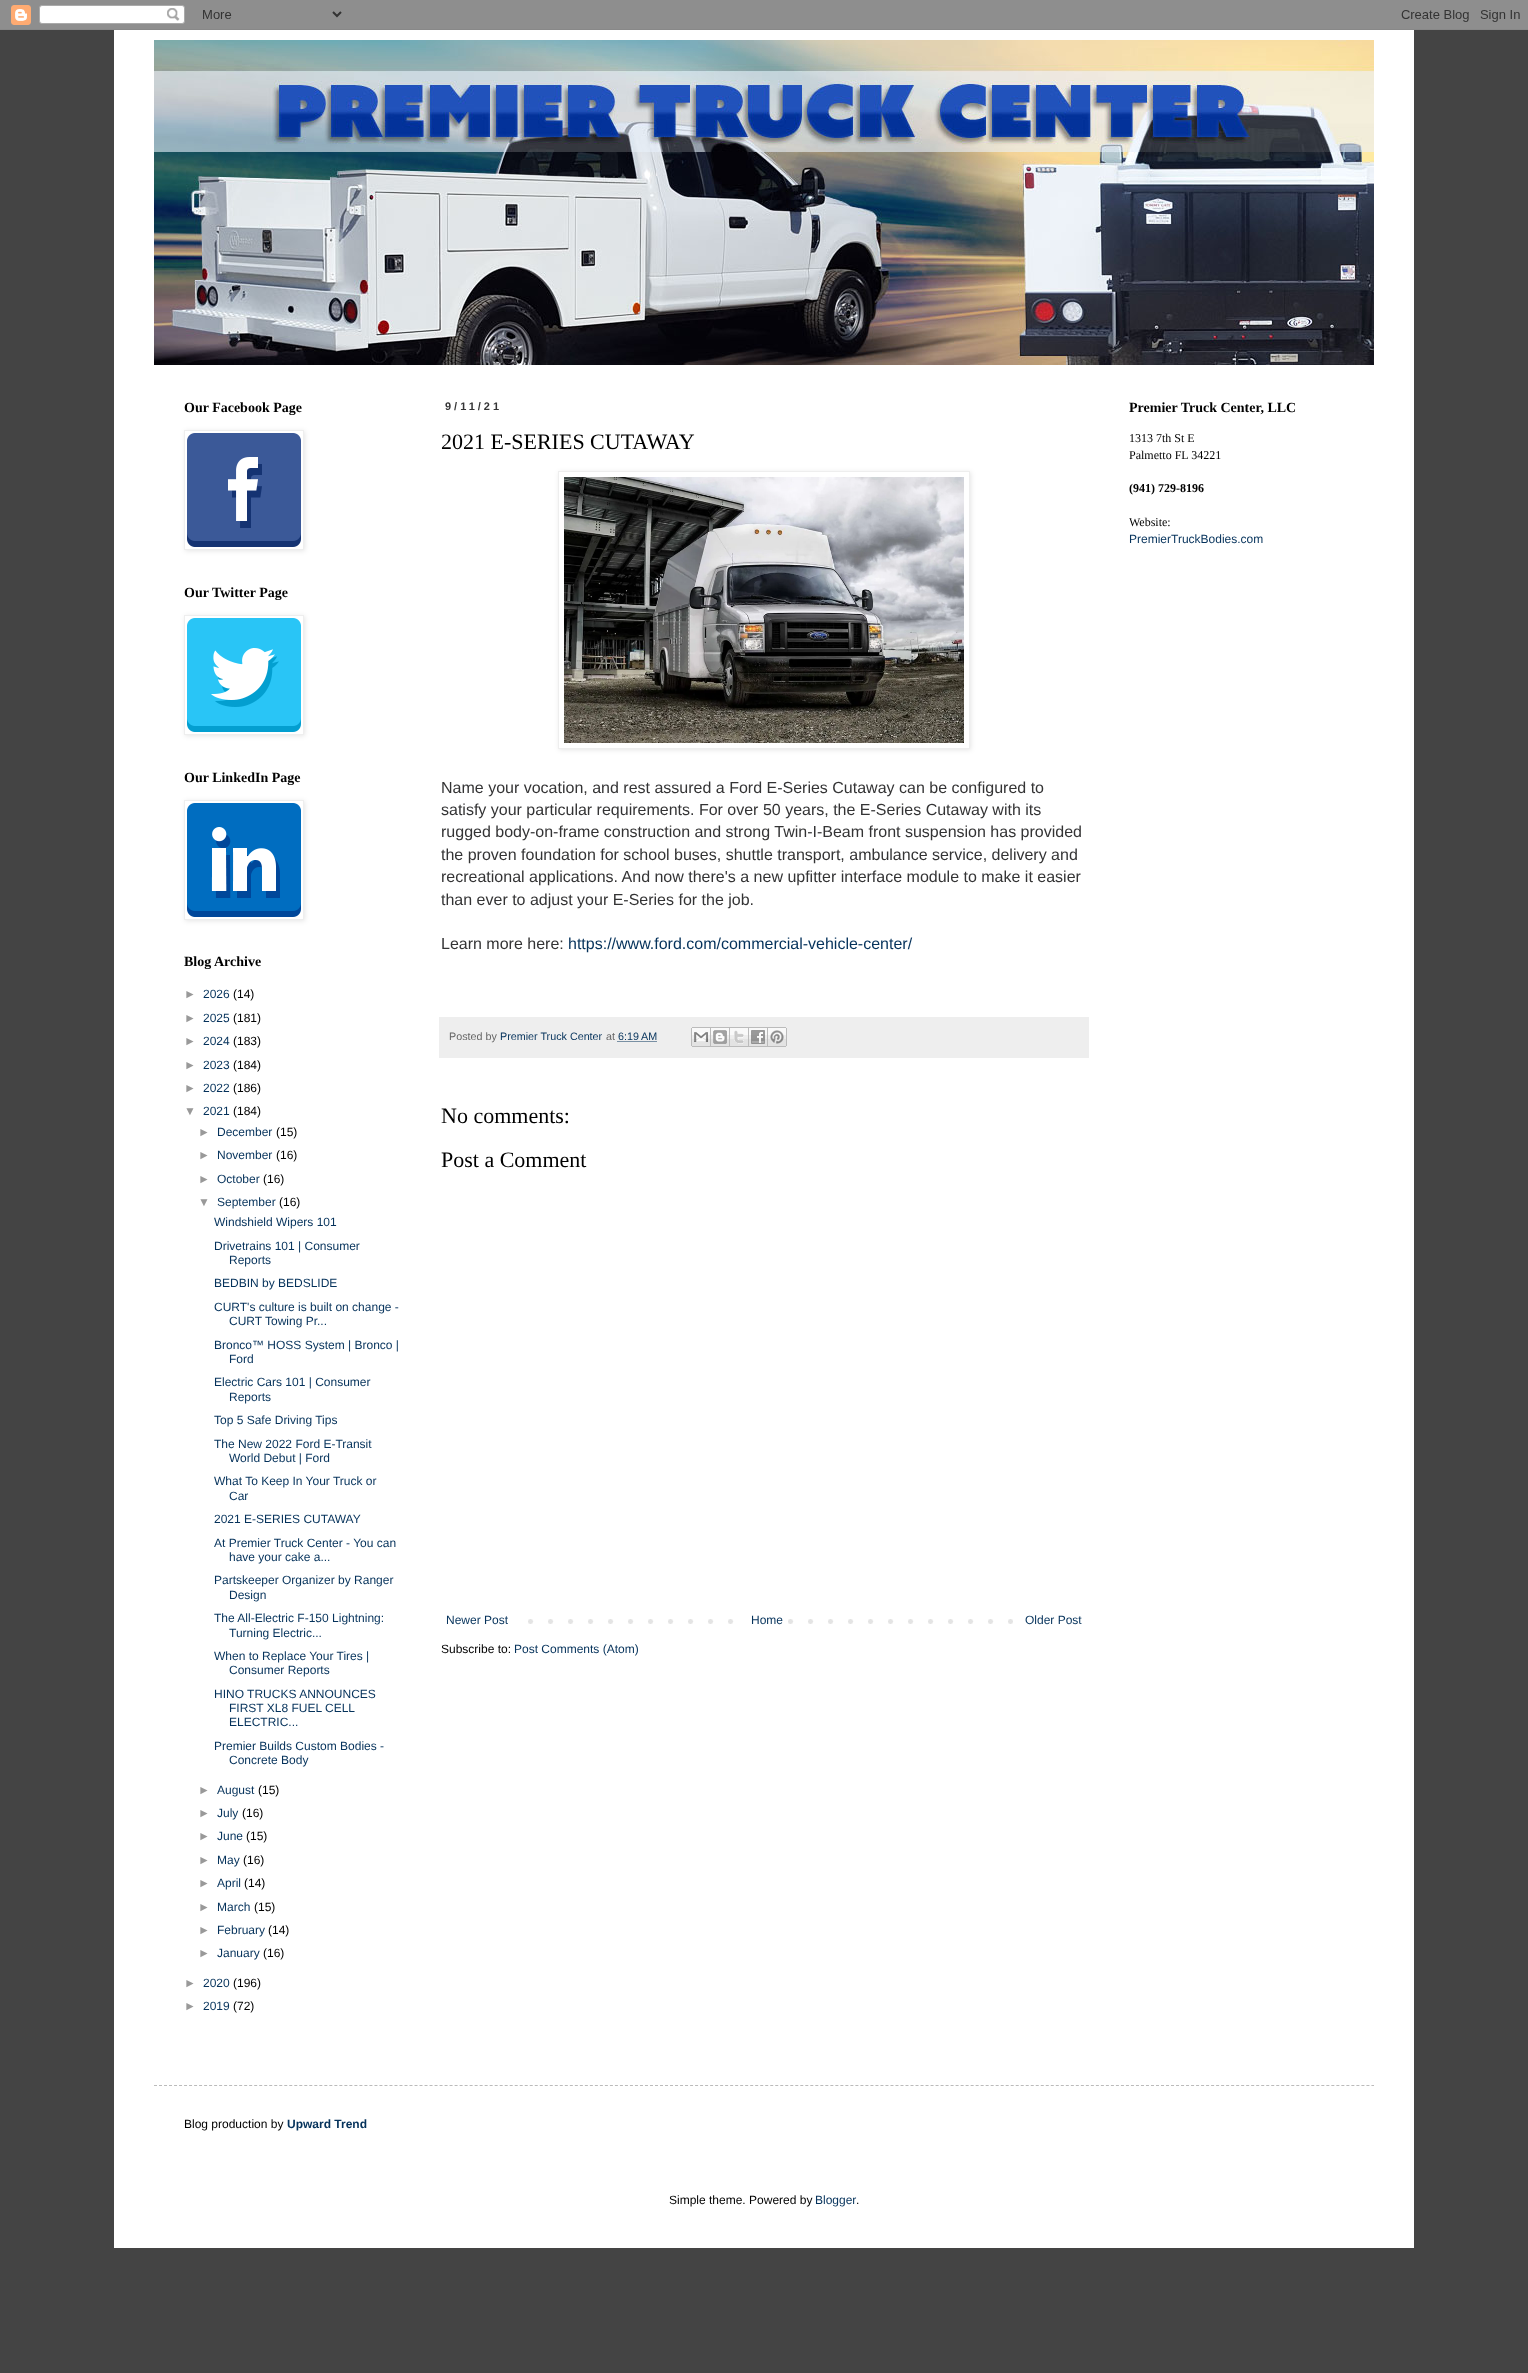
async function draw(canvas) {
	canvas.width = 1528;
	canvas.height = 2373;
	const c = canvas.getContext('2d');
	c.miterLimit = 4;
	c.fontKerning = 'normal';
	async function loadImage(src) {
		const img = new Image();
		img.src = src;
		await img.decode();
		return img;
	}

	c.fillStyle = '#444';
	c.fillRect(0, 0, 1528, 2373);
	c.drawImage(await loadImage('img1.png'), 0, 0, 1528, 30);
	c.fillStyle = '#fff';
	c.fillRect(114, 30, 1300, 2218);
	c.drawImage(await loadImage('img2.png'), 154, 40, 1220, 325);
	c.font = 'bold 14px Liberation Serif';
	c.fillStyle = '#000';
	c.fillText('Our Facebook Page', 184, 412);
	c.save();
	c.beginPath();
	c.moveTo(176, 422);
	c.lineTo(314, 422);
	c.lineTo(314, 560);
	c.lineTo(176, 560);
	c.closePath();
	c.moveTo(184, 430);
	c.lineTo(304, 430);
	c.lineTo(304, 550);
	c.lineTo(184, 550);
	c.closePath();
	c.clip('evenodd');
	c.fillStyle = '#0000001a';
	c.filter = 'blur(2.5px)';
	c.beginPath();
	c.rect(185, 431, 120, 120);
	c.fill();
	c.filter = 'none';
	c.restore();
	c.strokeStyle = '#eee';
	c.strokeRect(184.5, 430.5, 119, 119);
	c.drawImage(await loadImage('img3.png'), 187, 433, 114, 114);
	c.fillText('Our Twitter Page', 184, 597);
	c.save();
	c.beginPath();
	c.moveTo(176, 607);
	c.lineTo(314, 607);
	c.lineTo(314, 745);
	c.lineTo(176, 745);
	c.closePath();
	c.moveTo(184, 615);
	c.lineTo(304, 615);
	c.lineTo(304, 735);
	c.lineTo(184, 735);
	c.closePath();
	c.clip('evenodd');
	c.fillStyle = '#0000001a';
	c.filter = 'blur(2.5px)';
	c.beginPath();
	c.rect(185, 616, 120, 120);
	c.fill();
	c.filter = 'none';
	c.restore();
	c.strokeRect(184.5, 615.5, 119, 119);
	c.drawImage(await loadImage('img4.png'), 187, 618, 114, 114);
	c.fillText('Our LinkedIn Page', 184, 782);
	c.save();
	c.beginPath();
	c.moveTo(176, 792);
	c.lineTo(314, 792);
	c.lineTo(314, 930);
	c.lineTo(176, 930);
	c.closePath();
	c.moveTo(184, 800);
	c.lineTo(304, 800);
	c.lineTo(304, 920);
	c.lineTo(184, 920);
	c.closePath();
	c.clip('evenodd');
	c.fillStyle = '#0000001a';
	c.filter = 'blur(2.5px)';
	c.beginPath();
	c.rect(185, 801, 120, 120);
	c.fill();
	c.filter = 'none';
	c.restore();
	c.strokeRect(184.5, 800.5, 119, 119);
	c.drawImage(await loadImage('img5.png'), 187, 803, 114, 114);
	c.fillText('Blog Archive', 184, 966);
	c.font = '12px Liberation Sans';
	c.fillStyle = '#999';
	c.fillText('►', 184, 998);
	c.fillStyle = '#05325b';
	c.fillText('2026', 203, 998);
	c.fillStyle = '#000';
	c.fillText('(14)', 233, 998);
	c.fillStyle = '#999';
	c.fillText('►', 184, 1022);
	c.fillStyle = '#05325b';
	c.fillText('2025', 203, 1022);
	c.fillStyle = '#000';
	c.fillText('(181)', 233, 1022);
	c.fillStyle = '#999';
	c.fillText('►', 184, 1045);
	c.fillStyle = '#05325b';
	c.fillText('2024', 203, 1045);
	c.fillStyle = '#000';
	c.fillText('(183)', 233, 1045);
	c.fillStyle = '#999';
	c.fillText('►', 184, 1069);
	c.fillStyle = '#05325b';
	c.fillText('2023', 203, 1069);
	c.fillStyle = '#000';
	c.fillText('(184)', 233, 1069);
	c.fillStyle = '#999';
	c.fillText('►', 184, 1092);
	c.fillStyle = '#05325b';
	c.fillText('2022', 203, 1092);
	c.fillStyle = '#000';
	c.fillText('(186)', 233, 1092);
	c.fillStyle = '#999';
	c.fillText('▼', 184, 1115);
	c.fillStyle = '#05325b';
	c.fillText('2021', 203, 1115);
	c.fillStyle = '#000';
	c.fillText('(184)', 233, 1115);
	c.fillStyle = '#999';
	c.fillText('►', 198, 1136);
	c.fillStyle = '#05325b';
	c.fillText('December', 217, 1136);
	c.fillStyle = '#000';
	c.fillText('(15)', 276, 1136);
	c.fillStyle = '#999';
	c.fillText('►', 198, 1159);
	c.fillStyle = '#05325b';
	c.fillText('November', 217, 1159);
	c.fillStyle = '#000';
	c.fillText('(16)', 276, 1159);
	c.fillStyle = '#999';
	c.fillText('►', 198, 1183);
	c.fillStyle = '#05325b';
	c.fillText('October', 217, 1183);
	c.fillStyle = '#000';
	c.fillText('(16)', 263, 1183);
	c.fillStyle = '#999';
	c.fillText('▼', 198, 1206);
	c.fillStyle = '#05325b';
	c.fillText('September', 217, 1206);
	c.fillStyle = '#000';
	c.fillText('(16)', 279, 1206);
	c.fillStyle = '#05325b';
	for (const [text, x, y] of [
		['Windshield Wipers 101', 214, 1226],
		['Drivetrains 101 | Consumer', 214, 1250],
		['Reports', 229, 1264],
		['BEDBIN by BEDSLIDE', 214, 1287],
		['CURT\'s culture is built on change -', 214, 1311],
		['CURT Towing Pr...', 229, 1325],
		['Bronco™ HOSS System | Bronco |', 214, 1349],
		['Ford', 229, 1363],
		['Electric Cars 101 | Consumer', 214, 1386],
		['Reports', 229, 1401],
		['Top 5 Safe Driving Tips', 214, 1424],
		['The New 2022 Ford E-Transit', 214, 1448],
		['World Debut | Ford', 229, 1462],
		['What To Keep In Your Truck or', 214, 1485],
		['Car', 229, 1500],
		['2021 E-SERIES CUTAWAY', 214, 1523],
		['At Premier Truck Center - You can', 214, 1547],
		['have your cake a...', 229, 1561],
		['Partskeeper Organizer by Ranger', 214, 1584],
		['Design', 229, 1599],
		['The All-Electric F-150 Lightning:', 214, 1622],
		['Turning Electric...', 229, 1637],
		['When to Replace Your Tires |', 214, 1660],
		['Consumer Reports', 229, 1674],
		['HINO TRUCKS ANNOUNCES', 214, 1698],
		['FIRST XL8 FUEL CELL', 229, 1712],
		['ELECTRIC...', 229, 1726],
		['Premier Builds Custom Bodies -', 214, 1750],
		['Concrete Body', 229, 1764],
	]) {
		c.fillText(text, x, y);
	}
	c.fillStyle = '#999';
	c.fillText('►', 198, 1794);
	c.fillStyle = '#05325b';
	c.fillText('August', 217, 1794);
	c.fillStyle = '#000';
	c.fillText('(15)', 258, 1794);
	c.fillStyle = '#999';
	c.fillText('►', 198, 1817);
	c.fillStyle = '#05325b';
	c.fillText('July', 217, 1817);
	c.fillStyle = '#000';
	c.fillText('(16)', 242, 1817);
	c.fillStyle = '#999';
	c.fillText('►', 198, 1840);
	c.fillStyle = '#05325b';
	c.fillText('June', 217, 1840);
	c.fillStyle = '#000';
	c.fillText('(15)', 246, 1840);
	c.fillStyle = '#999';
	c.fillText('►', 198, 1864);
	c.fillStyle = '#05325b';
	c.fillText('May', 217, 1864);
	c.fillStyle = '#000';
	c.fillText('(16)', 243, 1864);
	c.fillStyle = '#999';
	c.fillText('►', 198, 1887);
	c.fillStyle = '#05325b';
	c.fillText('April', 217, 1887);
	c.fillStyle = '#000';
	c.fillText('(14)', 244, 1887);
	c.fillStyle = '#999';
	c.fillText('►', 198, 1911);
	c.fillStyle = '#05325b';
	c.fillText('March', 217, 1911);
	c.fillStyle = '#000';
	c.fillText('(15)', 254, 1911);
	c.fillStyle = '#999';
	c.fillText('►', 198, 1934);
	c.fillStyle = '#05325b';
	c.fillText('February', 217, 1934);
	c.fillStyle = '#000';
	c.fillText('(14)', 268, 1934);
	c.fillStyle = '#999';
	c.fillText('►', 198, 1957);
	c.fillStyle = '#05325b';
	c.fillText('January', 217, 1957);
	c.fillStyle = '#000';
	c.fillText('(16)', 263, 1957);
	c.fillStyle = '#999';
	c.fillText('►', 184, 1987);
	c.fillStyle = '#05325b';
	c.fillText('2020', 203, 1987);
	c.fillStyle = '#000';
	c.fillText('(196)', 233, 1987);
	c.fillStyle = '#999';
	c.fillText('►', 184, 2010);
	c.fillStyle = '#05325b';
	c.fillText('2019', 203, 2010);
	c.fillStyle = '#000';
	c.fillText('(72)', 233, 2010);
	c.letterSpacing = '3px';
	c.font = 'bold 11px Liberation Sans';
	c.fillStyle = '#343435';
	c.fillText('9/11/21', 445, 410);
	c.letterSpacing = '0px';
	c.font = '22px Liberation Serif';
	c.fillStyle = '#000';
	c.fillText('2021 E-SERIES CUTAWAY', 441, 449);
	c.save();
	c.beginPath();
	c.moveTo(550, 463);
	c.lineTo(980, 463);
	c.lineTo(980, 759);
	c.lineTo(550, 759);
	c.closePath();
	c.moveTo(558, 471);
	c.lineTo(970, 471);
	c.lineTo(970, 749);
	c.lineTo(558, 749);
	c.closePath();
	c.clip('evenodd');
	c.fillStyle = '#0000001a';
	c.filter = 'blur(2.5px)';
	c.beginPath();
	c.rect(559, 472, 412, 278);
	c.fill();
	c.filter = 'none';
	c.restore();
	c.strokeRect(558.5, 471.5, 411, 277);
	c.drawImage(await loadImage('img6.png'), 564, 477, 400, 266);
	c.font = '16px Liberation Sans';
	c.fillStyle = '#343435';
	for (const [text, x, y] of [
		['Name your vocation, and rest assured a Ford E-Series Cutaway can be configured to', 441, 793],
		['satisfy your particular requirements. For over 50 years, the E-Series Cutaway with its', 441, 815],
		['rugged body-on-frame construction and strong Twin-I-Beam front suspension has provided', 441, 837],
		['the proven foundation for school buses, shuttle transport, ambulance service, delivery and', 441, 860],
		['recreational applications. And now there\'s a new upfitter interface module to make it easier', 441, 882],
		['than ever to adjust your E-Series for the job.', 441, 905],
		['Learn more here:', 441, 949],
	]) {
		c.fillText(text, x, y);
	}
	c.fillStyle = '#05325b';
	c.fillText('https://www.ford.com/commercial-vehicle-center/', 568, 949);
	c.fillStyle = '#eee';
	c.fillRect(439, 1017, 650, 41);
	c.font = '10.75px Liberation Sans';
	c.fillStyle = '#666';
	c.fillText('Posted by', 449, 1040);
	c.fillStyle = '#05325b';
	c.fillText('Premier Truck Center', 500, 1040);
	c.fillStyle = '#666';
	c.fillText('at', 606, 1040);
	c.fillStyle = '#05325b';
	c.fillText('6:19 AM', 618, 1040);
	c.beginPath();
	c.moveTo(617.5, 1041.5);
	c.lineTo(657, 1041.5);
	c.strokeStyle = '#05325b';
	c.setLineDash([1, 1]);
	c.stroke();
	c.drawImage(await loadImage('img7.png'), 691, 1027, 20, 20);
	c.drawImage(await loadImage('img8.png'), 711, 1027, 19, 20);
	c.drawImage(await loadImage('img9.png'), 730, 1027, 19, 20);
	c.drawImage(await loadImage('img10.png'), 749, 1027, 19, 20);
	c.drawImage(await loadImage('img11.png'), 768, 1027, 19, 20);
	c.font = '22px Liberation Serif';
	c.fillStyle = '#000';
	c.fillText('No comments:', 441, 1123);
	c.fillText('Post a Comment', 441, 1167);
	c.drawImage(await loadImage('img12.png'), 528, 1619, 485, 5);
	c.font = '12px Liberation Sans';
	c.fillStyle = '#05325b';
	c.fillText('Newer Post', 446, 1624);
	c.fillStyle = '#fff';
	c.fillRect(748, 1619, 26, 5);
	c.fillStyle = '#05325b';
	c.fillText('Home', 751, 1624);
	c.fillText('Older Post', 1025, 1624);
	c.fillStyle = '#000';
	c.fillText('Subscribe to:', 441, 1653);
	c.fillStyle = '#05325b';
	c.fillText('Post Comments (Atom)', 514, 1653);
	c.font = 'bold 14px Liberation Serif';
	c.fillStyle = '#000';
	c.fillText('Premier Truck Center, LLC', 1129, 412);
	c.font = '12px Liberation Serif';
	c.fillText('1313 7th St E', 1129, 442);
	c.fillText('Palmetto FL 34221', 1129, 459);
	c.font = 'bold 12px Liberation Serif';
	c.fillText('(941) 729-8196', 1129, 492);
	c.font = '12px Liberation Serif';
	c.fillText('Website:', 1129, 526);
	c.font = '12px Liberation Sans';
	c.fillStyle = '#05325b';
	c.fillText('PremierTruckBodies.com', 1129, 543);
	c.beginPath();
	c.moveTo(154, 2085.5);
	c.lineTo(1374, 2085.5);
	c.strokeStyle = '#bbb';
	c.setLineDash([3, 2.01]);
	c.stroke();
	c.fillStyle = '#000';
	c.fillText('Blog production by', 184, 2128);
	c.font = 'bold 12px Liberation Sans';
	c.fillStyle = '#05325b';
	c.fillText('Upward Trend', 287, 2128);
	c.font = '12px Liberation Sans';
	c.fillStyle = '#000';
	c.fillText('Simple theme. Powered by', 669, 2204);
	c.fillStyle = '#05325b';
	c.fillText('Blogger', 815, 2204);
	c.fillStyle = '#000';
	c.fillText('.', 856, 2204);
}

draw(document.querySelector('canvas'));
